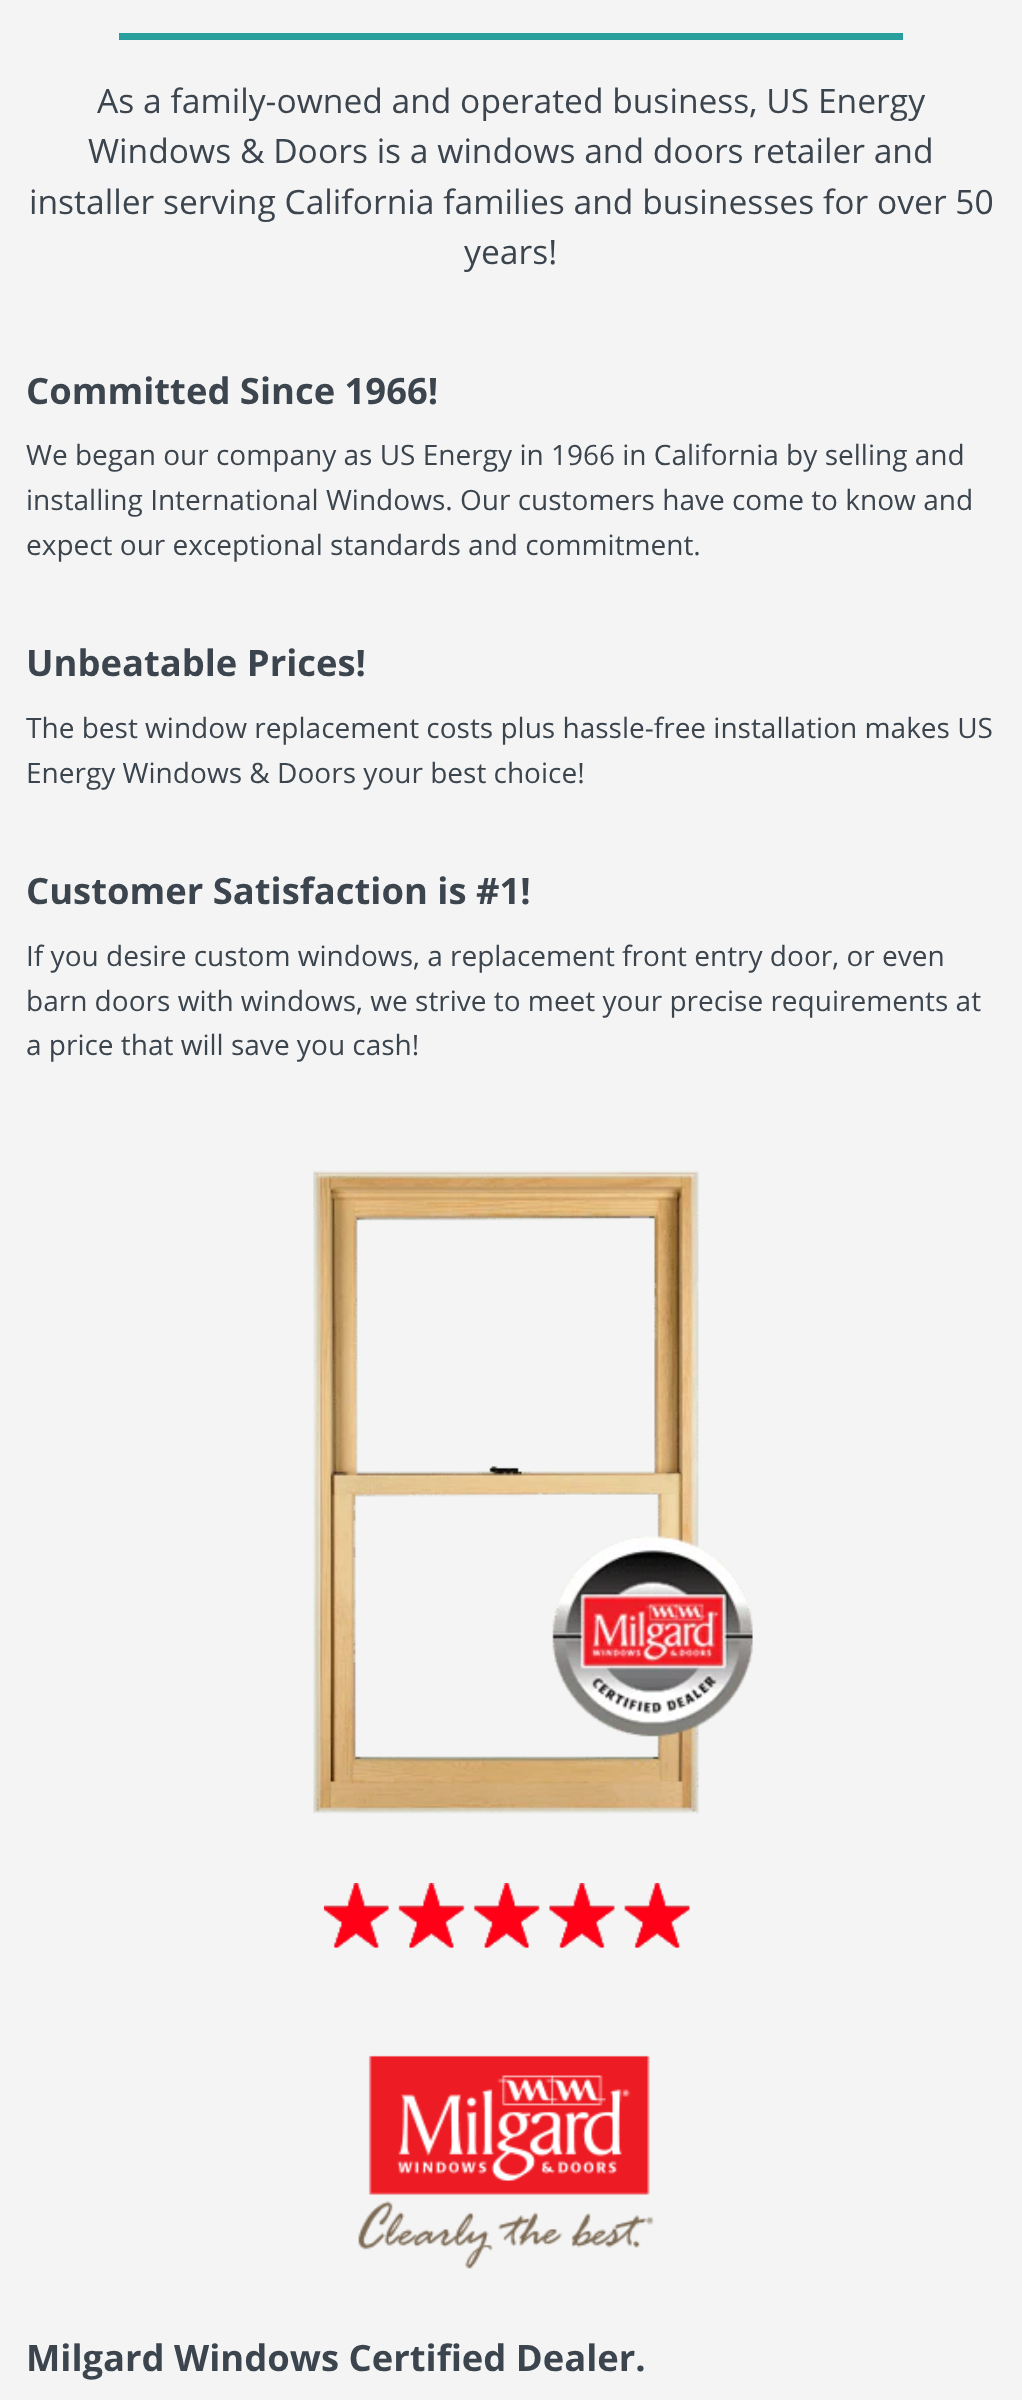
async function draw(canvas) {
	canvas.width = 1022;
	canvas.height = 2400;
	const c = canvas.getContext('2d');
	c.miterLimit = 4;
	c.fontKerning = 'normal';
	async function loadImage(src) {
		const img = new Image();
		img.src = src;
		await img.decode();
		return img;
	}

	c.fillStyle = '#f4f4f4';
	c.fillRect(0, 0, 1022, 2400);
	c.fillStyle = '#289e9d';
	c.fillRect(119, 33, 784, 7);
	c.font = '33.6px Open Sans';
	c.fillStyle = '#3c454e';
	for (const [text, x, y] of [
		['As a family-owned and operated business, US Energy', 97, 113],
		['Windows & Doors is a windows and doors retailer and', 88, 163],
		['installer serving California families and businesses for over 50', 29, 214],
		['years!', 464, 264],
	]) {
		c.fillText(text, x, y);
	}
	c.font = 'bold 36.4px Open Sans';
	c.fillText('Committed Since 1966!', 26, 404);
	c.font = '28px Open Sans';
	for (const [text, x, y] of [
		['We began our company as US Energy in 1966 in California by selling and', 26, 465],
		['installing International Windows. Our customers have come to know and', 26, 510],
		['expect our exceptional standards and commitment.', 26, 555],
	]) {
		c.fillText(text, x, y);
	}
	c.font = 'bold 36.4px Open Sans';
	c.fillText('Unbeatable Prices!', 26, 676);
	c.font = '28px Open Sans';
	c.fillText('The best window replacement costs plus hassle-free installation makes US', 26, 738);
	c.fillText('Energy Windows & Doors your best choice!', 26, 783);
	c.font = 'bold 36.4px Open Sans';
	c.fillText('Customer Satisfaction is #1!', 26, 904);
	c.font = '28px Open Sans';
	for (const [text, x, y] of [
		['If you desire custom windows, a replacement front entry door, or even', 26, 966],
		['barn doors with windows, we strive to meet your precise requirements at', 26, 1011],
		['a price that will save you cash!', 26, 1055],
	]) {
		c.fillText(text, x, y);
	}
	c.drawImage(await loadImage('img1.png'), 313, 1170, 440, 644);
	c.drawImage(await loadImage('img2.png'), 323, 1883, 367, 65);
	c.drawImage(await loadImage('img3.png'), 358, 2055, 296, 214);
	c.font = 'bold 36.4px Open Sans';
	c.fillText('Milgard Windows Certified Dealer.', 26, 2371);
}

draw(document.querySelector('canvas'));
